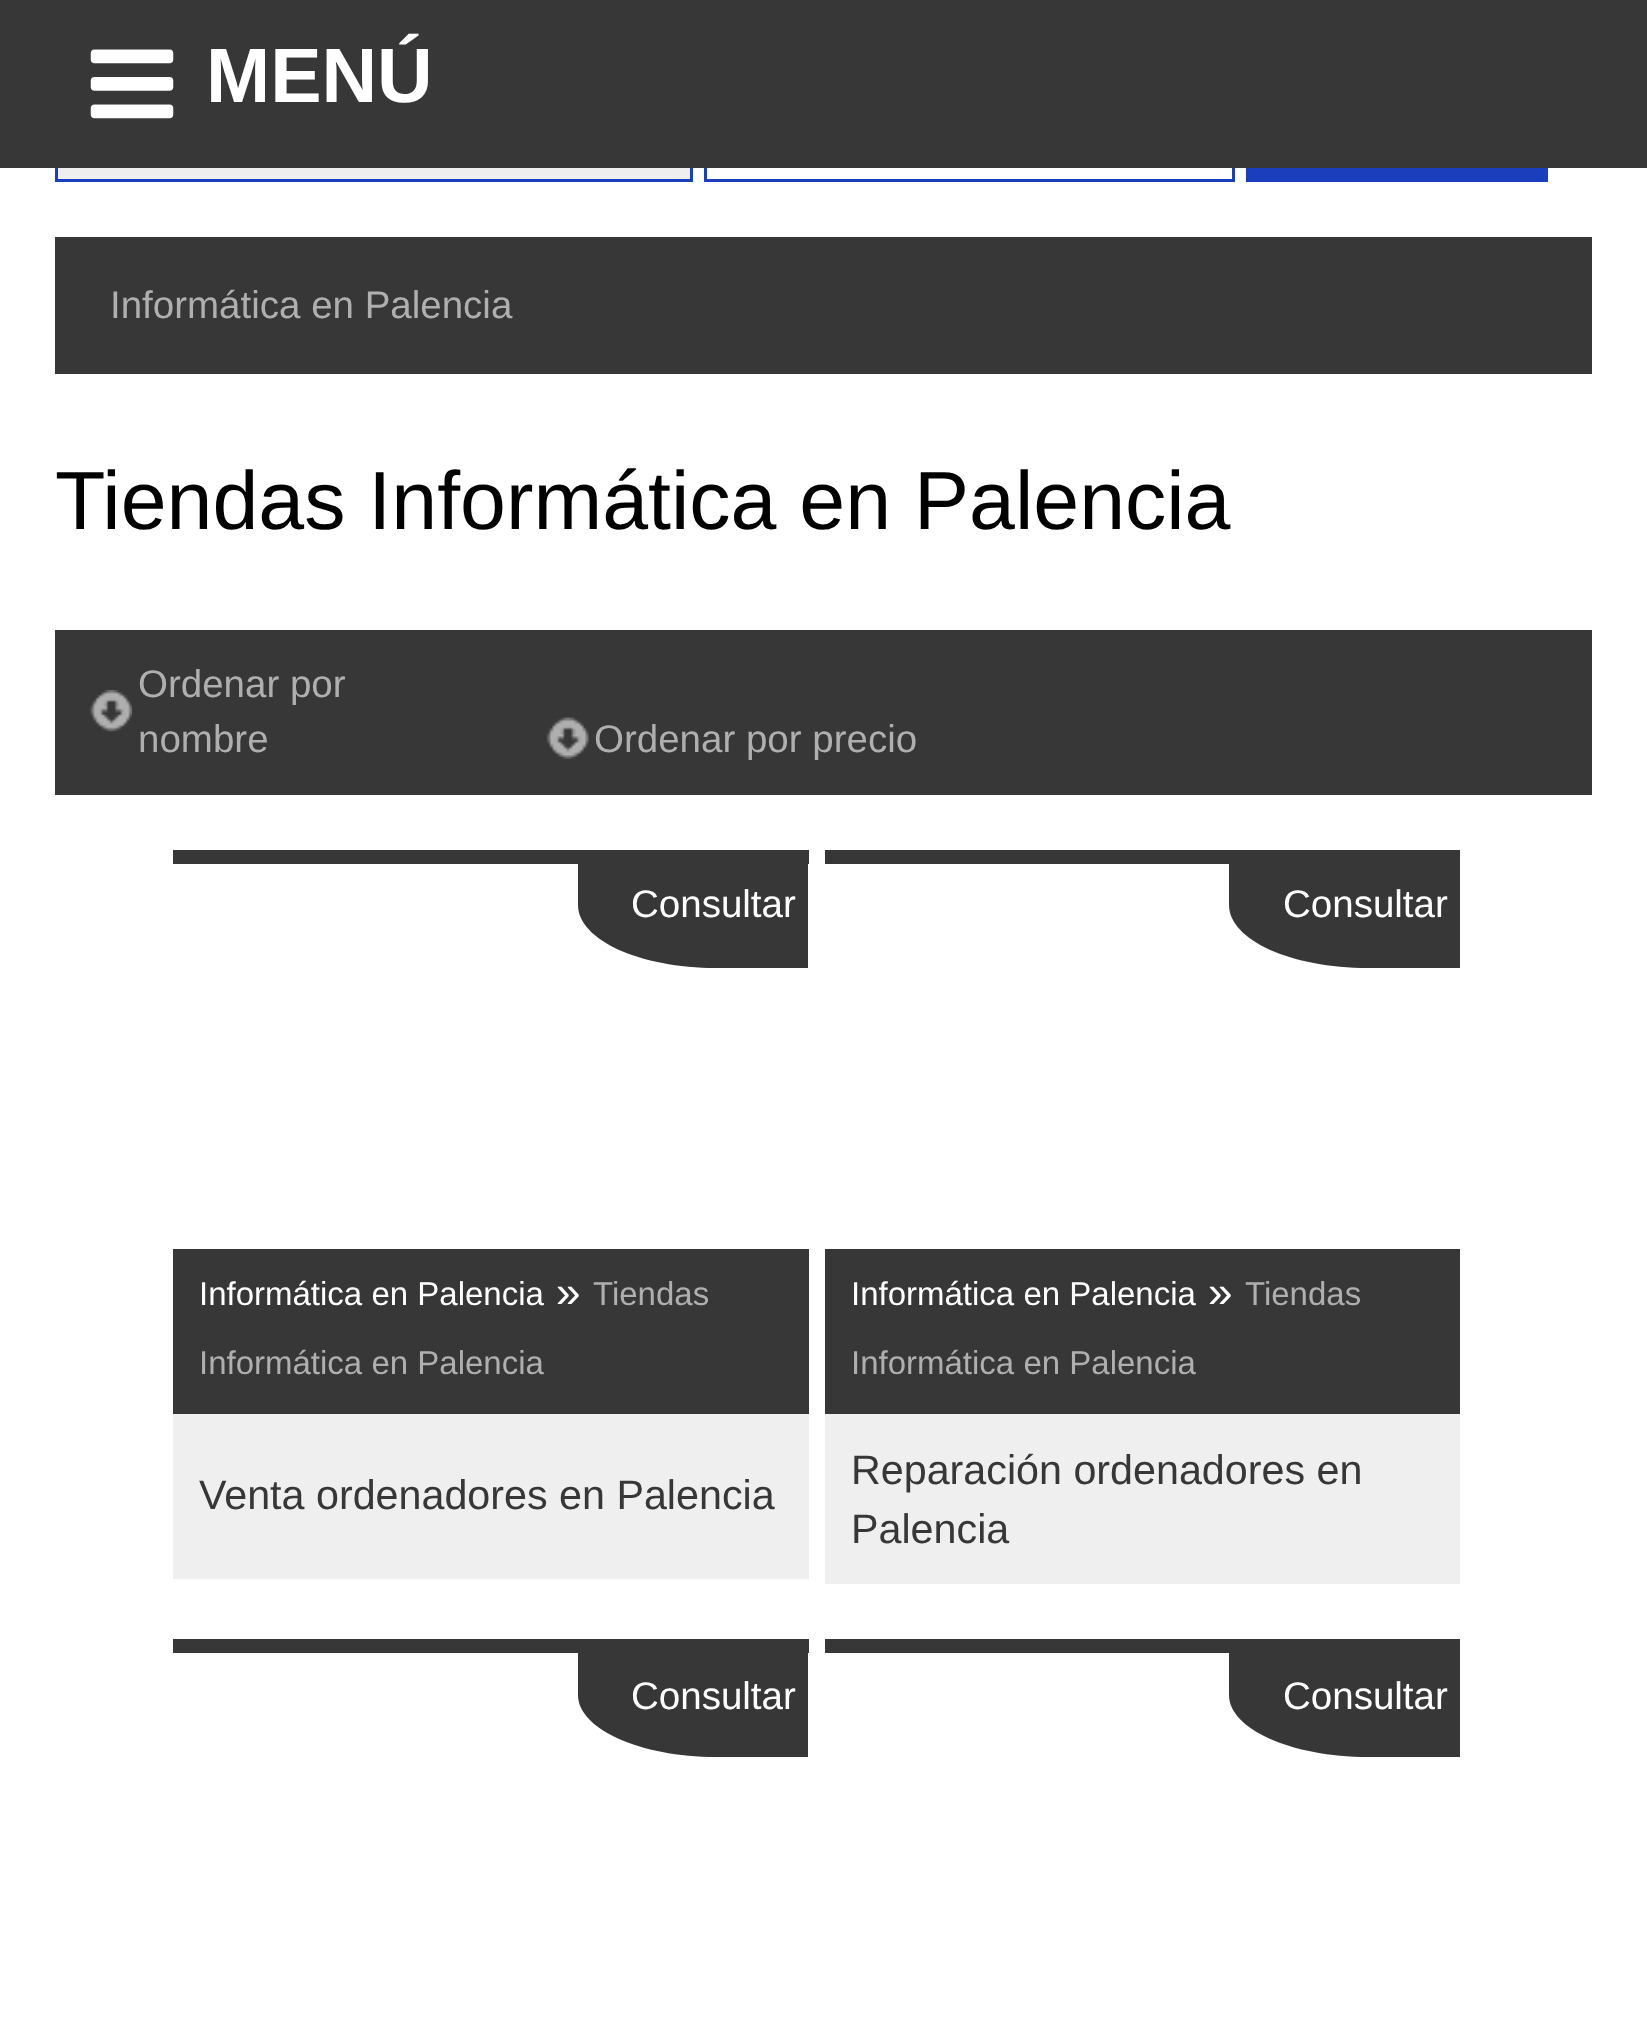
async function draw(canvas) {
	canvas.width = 1647;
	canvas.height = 2032;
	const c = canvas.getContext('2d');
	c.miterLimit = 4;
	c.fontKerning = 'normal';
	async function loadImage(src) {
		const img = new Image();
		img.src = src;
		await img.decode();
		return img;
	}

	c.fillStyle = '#fff';
	c.fillRect(0, 0, 1647, 2032);
	c.fillStyle = '#efefef';
	c.fillRect(58, 168, 632, 11);
	c.strokeStyle = '#1a3ebc';
	c.lineWidth = 3;
	c.strokeRect(56.5, 73.5, 635, 107);
	c.strokeRect(705.5, 73.5, 528, 107);
	c.fillStyle = '#373737';
	c.fillRect(0, 0, 1647, 168);
	c.drawImage(await loadImage('img1.png'), 90, 49, 84, 70);
	c.font = 'bold 77px Liberation Sans';
	c.fillStyle = '#fff';
	c.fillText('MENÚ', 206, 102);
	c.fillStyle = '#1a3ebc';
	c.fillRect(1246, 168, 302, 14);
	c.fillStyle = '#373737';
	c.fillRect(55, 237, 1537, 137);
	c.font = '38.5px Liberation Sans';
	c.fillStyle = '#afafaf';
	c.fillText('Informática en Palencia', 110, 318);
	c.font = '82.5px Liberation Sans';
	c.fillStyle = '#000';
	c.fillText('Tiendas Informática en Palencia', 55, 529);
	c.fillStyle = '#373737';
	c.fillRect(55, 630, 1537, 165);
	c.drawImage(await loadImage('img2.png'), 90, 690, 42, 42);
	c.font = '38.5px Liberation Sans';
	c.fillStyle = '#afafaf';
	c.fillText('Ordenar por', 138, 697);
	c.fillText('nombre', 138, 752);
	c.drawImage(await loadImage('img3.png'), 546, 717, 43, 42);
	c.fillText('Ordenar por precio', 594, 752);
	c.fillStyle = '#373737';
	c.fillRect(173, 850, 636, 14);
	c.beginPath();
	c.moveTo(578, 864);
	c.lineTo(808, 864);
	c.lineTo(808, 968);
	c.lineTo(716, 968);
	c.bezierCurveTo(640, 968, 578, 940, 578, 905);
	c.closePath();
	c.fill();
	c.fillStyle = '#fff';
	c.fillText('Consultar', 631, 917);
	c.fillStyle = '#373737';
	c.fillRect(173, 1249, 636, 165);
	c.font = '33px Liberation Sans';
	c.fillStyle = '#fff';
	c.fillText('Informática en Palencia', 199, 1305);
	c.font = '44px Liberation Sans';
	c.fillText('»', 556, 1307);
	c.font = '33px Liberation Sans';
	c.fillStyle = '#afafaf';
	c.fillText('Tiendas', 593, 1305);
	c.fillText('Informática en Palencia', 199, 1374);
	c.fillStyle = '#efefef';
	c.fillRect(173, 1414, 636, 165);
	c.font = '41.25px Liberation Sans';
	c.fillStyle = '#373737';
	c.fillText('Venta ordenadores en Palencia', 199, 1509);
	c.fillRect(825, 850, 635, 14);
	c.beginPath();
	c.moveTo(1229, 864);
	c.lineTo(1460, 864);
	c.lineTo(1460, 968);
	c.lineTo(1368, 968);
	c.bezierCurveTo(1291, 968, 1229, 940, 1229, 905);
	c.closePath();
	c.fill();
	c.font = '38.5px Liberation Sans';
	c.fillStyle = '#fff';
	c.fillText('Consultar', 1283, 917);
	c.fillStyle = '#373737';
	c.fillRect(825, 1249, 635, 165);
	c.font = '33px Liberation Sans';
	c.fillStyle = '#fff';
	c.fillText('Informática en Palencia', 851, 1305);
	c.font = '44px Liberation Sans';
	c.fillText('»', 1208, 1307);
	c.font = '33px Liberation Sans';
	c.fillStyle = '#afafaf';
	c.fillText('Tiendas', 1245, 1305);
	c.fillText('Informática en Palencia', 851, 1374);
	c.fillStyle = '#efefef';
	c.fillRect(825, 1414, 635, 170);
	c.font = '41.25px Liberation Sans';
	c.fillStyle = '#373737';
	c.fillText('Reparación ordenadores en', 851, 1484);
	c.fillText('Palencia', 851, 1543);
	c.fillRect(173, 1639, 636, 14);
	c.beginPath();
	c.moveTo(578, 1653);
	c.lineTo(808, 1653);
	c.lineTo(808, 1757);
	c.lineTo(716, 1757);
	c.bezierCurveTo(640, 1757, 578, 1729, 578, 1695);
	c.closePath();
	c.fill();
	c.font = '38.5px Liberation Sans';
	c.fillStyle = '#fff';
	c.fillText('Consultar', 631, 1709);
	c.fillStyle = '#373737';
	c.fillRect(825, 1639, 635, 14);
	c.beginPath();
	c.moveTo(1229, 1653);
	c.lineTo(1460, 1653);
	c.lineTo(1460, 1757);
	c.lineTo(1368, 1757);
	c.bezierCurveTo(1291, 1757, 1229, 1729, 1229, 1695);
	c.closePath();
	c.fill();
	c.fillStyle = '#fff';
	c.fillText('Consultar', 1283, 1709);
}

draw(document.querySelector('canvas'));
